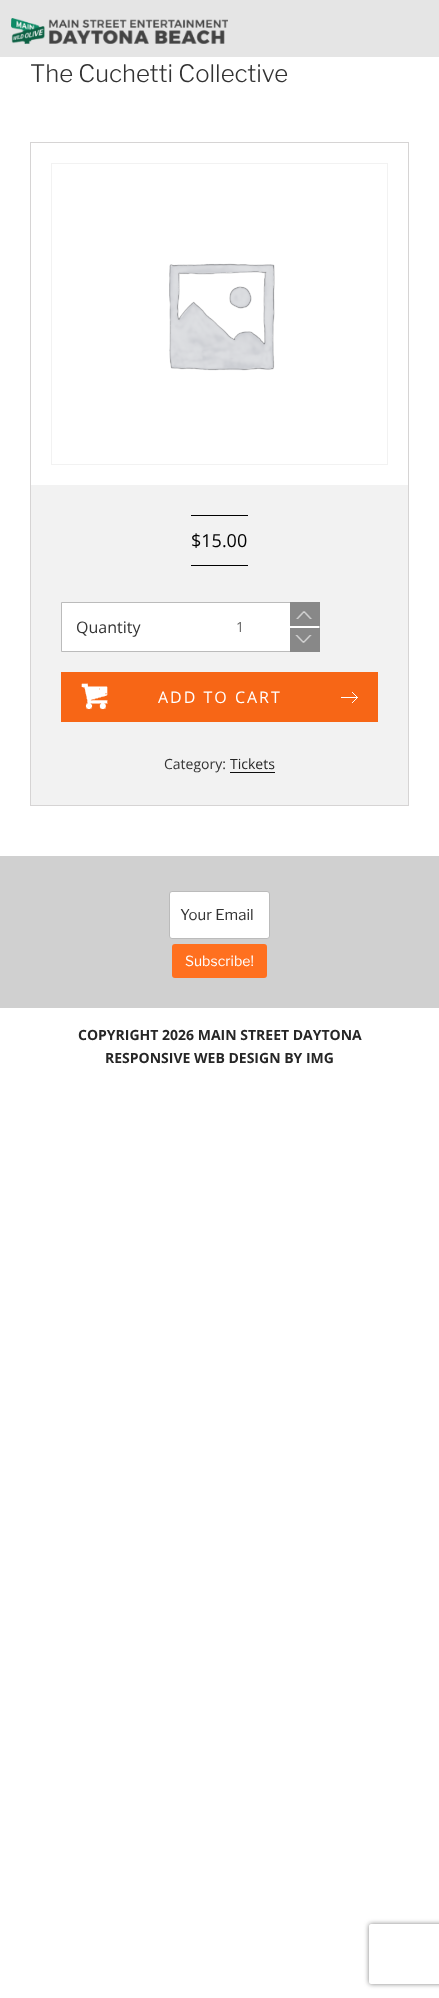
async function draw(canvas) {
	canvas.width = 439;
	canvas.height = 1998;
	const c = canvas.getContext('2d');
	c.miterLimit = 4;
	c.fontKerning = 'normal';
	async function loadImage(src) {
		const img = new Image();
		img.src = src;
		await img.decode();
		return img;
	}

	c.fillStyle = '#fff';
	c.fillRect(0, 0, 439, 1998);
	c.fillStyle = '#e5e5e5';
	c.fillRect(0, 0, 439, 57);
	c.drawImage(await loadImage('img1.png'), 11, 18, 217, 26);
	c.font = '300 24px Libre Franklin';
	c.fillStyle = '#333';
	c.fillText('The Cuchetti Collective', 30, 82);
	c.strokeStyle = '#d6d4d4';
	c.strokeRect(30.5, 142.5, 378, 663);
	c.strokeStyle = '#f2f2f2';
	c.strokeRect(51.5, 163.5, 336, 301);
	c.drawImage(await loadImage('img2.png'), 169, 263, 106, 108);
	for (const [x, y, w, h, color] of [
		[31, 485, 377, 320, '#f2f2f2'],
		[191, 515, 57, 1, '#000'],
		[191, 565, 57, 1, '#000'],
	]) {
		c.fillStyle = color;
		c.fillRect(x, y, w, h);
	}
	c.font = '18px Open Sans';
	c.fillText('$15.00', 191, 547);
	c.fillStyle = '#fff';
	c.beginPath();
	c.rect(61.5, 602.5, 258, 49);
	c.fill();
	c.strokeStyle = '#bbb';
	c.stroke();
	c.font = '16px Open Sans';
	c.fillStyle = '#333';
	c.fillText('Quantity', 76, 633);
	c.font = '14px Open Sans';
	c.fillStyle = '#666';
	c.fillText('1', 236, 632);
	c.drawImage(await loadImage('img3.png'), 290, 602, 30, 24);
	c.drawImage(await loadImage('img4.png'), 290, 628, 30, 24);
	c.fillStyle = '#f76616';
	c.fillRect(61, 672, 317, 50);
	c.drawImage(await loadImage('img5.png'), 81, 683, 27, 27);
	c.letterSpacing = '2px';
	c.font = '16px Open Sans';
	c.fillStyle = '#fff';
	c.fillText('ADD TO CART', 158, 703);
	c.drawImage(await loadImage('img6.png'), 341, 692, 17, 11);
	c.letterSpacing = '0px';
	c.font = '14px Open Sans';
	c.fillStyle = '#333';
	c.fillText('Category:', 164, 769);
	c.fillStyle = '#262626';
	c.fillText('Tickets', 230, 769);
	c.fillStyle = '#0f0f0f';
	c.fillRect(230, 772, 45, 1);
	c.fillStyle = '#d0d0d0';
	c.fillRect(0, 856, 439, 152);
	c.fillStyle = '#fff';
	c.beginPath();
	c.roundRect(169.5, 891.5, 100, 47, 2.5);
	c.fill();
	c.stroke();
	c.font = '15px Libre Franklin';
	c.fillStyle = '#333';
	c.fillText('Your Email', 180, 920);
	c.fillStyle = '#ff701f';
	c.beginPath();
	c.roundRect(172, 944, 95, 34, 3);
	c.fill();
	c.font = '14px Libre Franklin';
	c.fillStyle = '#fff';
	c.fillText('Subscribe!', 185, 966);
	c.font = 'bold 14px Open Sans';
	c.fillStyle = '#262626';
	c.fillText('COPYRIGHT 2026 MAIN STREET DAYTONA', 78, 1040);
	c.fillText('RESPONSIVE WEB DESIGN BY IMG', 105, 1063);
	c.save();
	c.beginPath();
	c.moveTo(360, 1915);
	c.lineTo(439, 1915);
	c.lineTo(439, 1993);
	c.lineTo(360, 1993);
	c.closePath();
	c.moveTo(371, 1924);
	c.lineTo(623, 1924);
	c.bezierCurveTo(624, 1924, 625, 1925, 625, 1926);
	c.lineTo(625, 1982);
	c.bezierCurveTo(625, 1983, 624, 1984, 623, 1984);
	c.lineTo(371, 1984);
	c.bezierCurveTo(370, 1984, 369, 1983, 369, 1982);
	c.lineTo(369, 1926);
	c.bezierCurveTo(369, 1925, 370, 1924, 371, 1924);
	c.closePath();
	c.clip('evenodd');
	c.fillStyle = '#808080';
	c.filter = 'blur(2.5px)';
	c.beginPath();
	c.roundRect(369, 1924, 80, 60, 2);
	c.fill();
	c.filter = 'none';
	c.restore();
}

draw(document.querySelector('canvas'));
